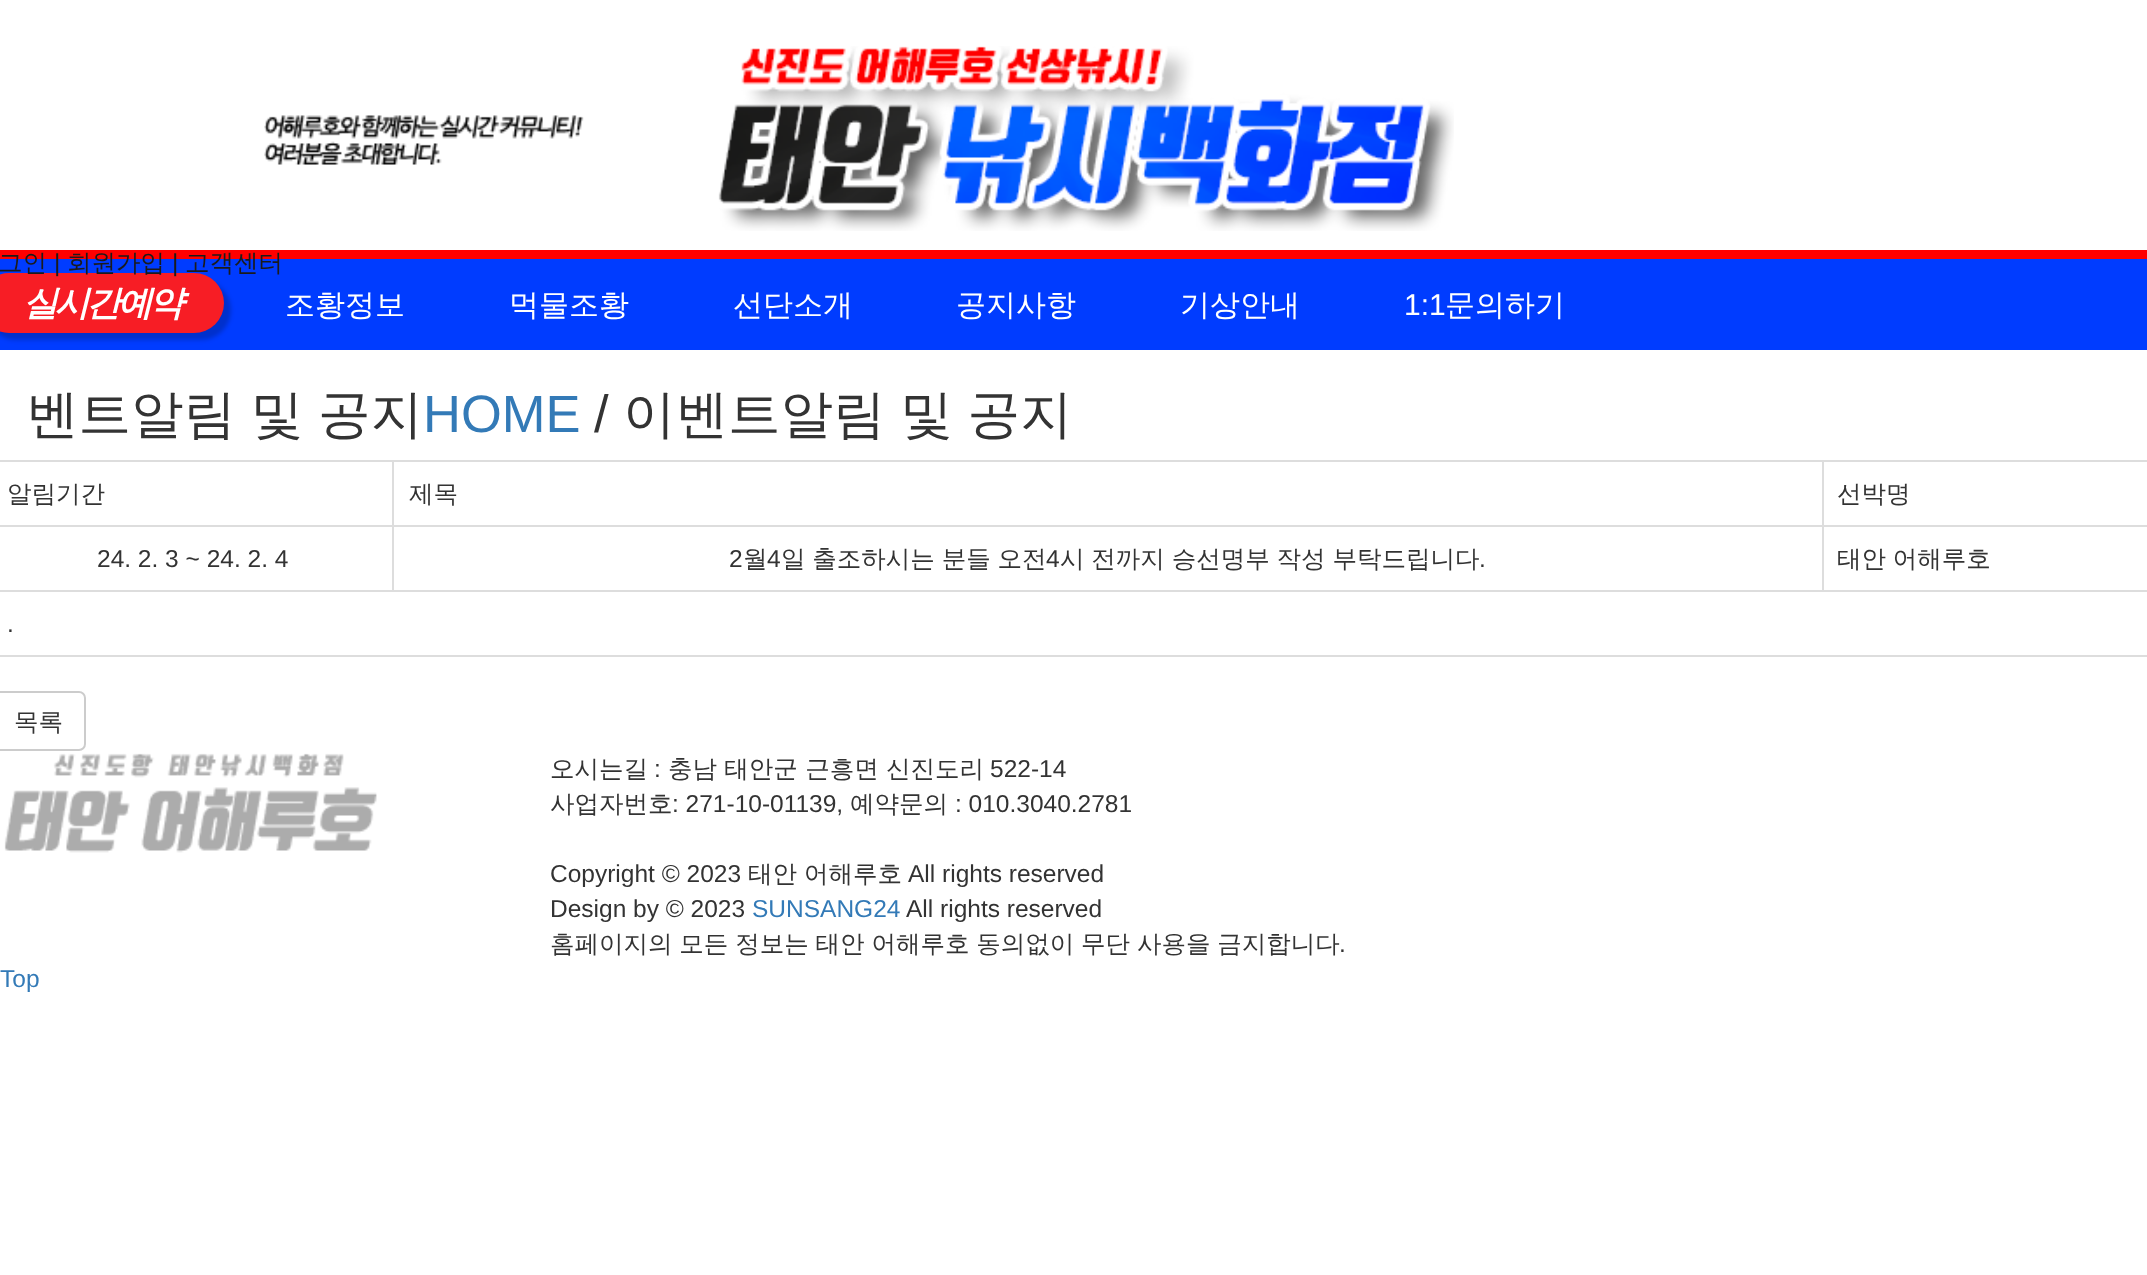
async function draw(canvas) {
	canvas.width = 2147;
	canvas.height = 1275;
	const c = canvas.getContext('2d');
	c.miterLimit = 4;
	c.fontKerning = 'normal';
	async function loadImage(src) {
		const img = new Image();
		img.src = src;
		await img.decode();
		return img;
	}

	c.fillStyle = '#fff';
	c.fillRect(0, 0, 2147, 1275);
	c.drawImage(await loadImage('img1.png'), 264, 46, 1190, 185);
	c.fillStyle = '#003cff';
	c.fillRect(0, 259, 2147, 91);
	c.fillStyle = '#f00';
	c.fillRect(0, 250, 2147, 9);
	c.fillStyle = '#00000033';
	c.filter = 'blur(2px)';
	c.beginPath();
	c.roundRect(-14, 280, 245, 60, 30);
	c.fill();
	c.filter = 'none';
	c.fillStyle = '#f71d25';
	c.beginPath();
	c.roundRect(-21, 273, 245, 60, 30);
	c.fill();
	c.font = '500 24.5px WenQuanYi Zen Hei';
	c.fillStyle = '#1b1b1b';
	c.fillText('그인', -2, 271);
	c.font = '24.5px Liberation Sans';
	c.fillText('|', 54, 271);
	c.font = '500 24.5px WenQuanYi Zen Hei';
	c.fillText('회원가입', 67, 271);
	c.font = '24.5px Liberation Sans';
	c.fillText('|', 172, 271);
	c.font = '500 24.5px WenQuanYi Zen Hei';
	c.fillText('고객센터', 185, 271);
	c.letterSpacing = '-3.5px';
	c.font = 'italic bold 35px WenQuanYi Zen Hei';
	c.fillStyle = '#fff';
	c.fillText('실시간예약', 23, 315);
	c.letterSpacing = '0px';
	c.font = '500 30px WenQuanYi Zen Hei';
	for (const [text, x, y] of [
		['조황정보', 285, 315],
		['먹물조황', 509, 315],
		['선단소개', 733, 315],
		['공지사항', 956, 315],
		['기상안내', 1180, 315],
	]) {
		c.fillText(text, x, y);
	}
	c.font = '30px Liberation Sans';
	c.fillText('1:1', 1404, 315);
	c.font = '500 30px WenQuanYi Zen Hei';
	c.fillText('문의하기', 1445, 315);
	c.wordSpacing = '-1px';
	c.font = '500 52.5px WenQuanYi Zen Hei';
	c.fillStyle = '#333';
	c.fillText('벤트알림 및 공지', 26, 432);
	c.wordSpacing = '0px';
	c.font = '52.5px Liberation Sans';
	c.fillStyle = '#337ab7';
	c.fillText('HOME', 423, 432);
	c.fillStyle = '#333';
	c.fillText('/', 594, 432);
	c.wordSpacing = '-1px';
	c.font = '500 52.5px WenQuanYi Zen Hei';
	c.fillText('이벤트알림 및 공지', 623, 432);
	c.fillStyle = '#ddd';
	c.fillRect(0, 460, 2147, 2);
	c.fillRect(0, 655, 2147, 2);
	c.wordSpacing = '0px';
	c.font = '500 24.5px WenQuanYi Zen Hei';
	c.fillStyle = '#333';
	c.fillText('알림기간', 7, 502);
	for (const [x, y, w, h, color] of [
		[1822, 525, 325, 2, '#ddd'],
		[0, 590, 2147, 2, '#ddd'],
		[1822, 525, 2, 67, '#ddd'],
		[392, 525, 1432, 2, '#ddd'],
		[392, 525, 2, 67, '#ddd'],
		[0, 525, 394, 2, '#ddd'],
		[392, 460, 2, 67, '#ddd'],
	]) {
		c.fillStyle = color;
		c.fillRect(x, y, w, h);
	}
	c.fillStyle = '#333';
	c.fillText('제목', 409, 502);
	c.fillStyle = '#ddd';
	c.fillRect(1822, 460, 2, 67);
	c.fillStyle = '#333';
	c.fillText('선박명', 1837, 502);
	c.font = '24.5px Liberation Sans';
	c.fillText('24. 2. 3 ~ 24. 2. 4', 97, 567);
	c.fillText('2', 729, 567);
	c.font = '500 24.5px WenQuanYi Zen Hei';
	c.fillText('월', 743, 567);
	c.font = '24.5px Liberation Sans';
	c.fillText('4', 767, 567);
	c.wordSpacing = '-0.5px';
	c.font = '500 24.5px WenQuanYi Zen Hei';
	c.fillText('일 출조하시는 분들 오전', 781, 567);
	c.wordSpacing = '0px';
	c.font = '24.5px Liberation Sans';
	c.fillText('4', 1046, 567);
	c.wordSpacing = '-0.5px';
	c.font = '500 24.5px WenQuanYi Zen Hei';
	c.fillText('시 전까지 승선명부 작성 부탁드립니다', 1060, 567);
	c.wordSpacing = '0px';
	c.font = '24.5px Liberation Sans';
	c.fillText('.', 1479, 567);
	c.wordSpacing = '-0.5px';
	c.font = '500 24.5px WenQuanYi Zen Hei';
	c.fillText('태안 어해루호', 1837, 567);
	c.wordSpacing = '0px';
	c.font = '24.5px Liberation Sans';
	c.fillText('.', 7, 632);
	c.beginPath();
	c.roundRect(-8, 692, 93, 58, 6);
	c.strokeStyle = '#ccc';
	c.lineWidth = 2;
	c.stroke();
	c.font = '500 24.5px WenQuanYi Zen Hei';
	c.fillText('목록', 14, 730);
	c.drawImage(await loadImage('img2.png'), 4, 753, 373, 100);
	c.fillText('오시는길', 550, 777);
	c.font = '24.5px Liberation Sans';
	c.fillText(':', 654, 777);
	c.font = '500 24.5px WenQuanYi Zen Hei';
	c.fillText('충남 태안군 근흥면 신진도리', 668, 777);
	c.font = '24.5px Liberation Sans';
	c.fillText('522-14', 990, 777);
	c.font = '500 24.5px WenQuanYi Zen Hei';
	c.fillText('사업자번호', 550, 812);
	c.font = '24.5px Liberation Sans';
	c.fillText(': 271-10-01139,', 672, 812);
	c.font = '500 24.5px WenQuanYi Zen Hei';
	c.fillText('예약문의', 850, 812);
	c.font = '24.5px Liberation Sans';
	c.fillText(': 010.3040.2781', 955, 812);
	c.fillText('Copyright © 2023', 550, 882);
	c.font = '500 24.5px WenQuanYi Zen Hei';
	c.fillText('태안', 748, 882);
	c.fillText('어해루호', 804, 882);
	c.font = '24.5px Liberation Sans';
	c.fillText('All rights reserved', 908, 882);
	c.fillText('Design by © 2023', 550, 917);
	c.fillStyle = '#337ab7';
	c.fillText('SUNSANG24', 752, 917);
	c.fillStyle = '#333';
	c.fillText('All rights reserved', 906, 917);
	c.wordSpacing = '-0.5px';
	c.font = '500 24.5px WenQuanYi Zen Hei';
	c.fillText('홈페이지의 모든 정보는 태안 어해루호 동의없이 무단 사용을 금지합니다', 550, 952);
	c.wordSpacing = '0px';
	c.font = '24.5px Liberation Sans';
	c.fillText('.', 1339, 952);
	c.fillStyle = '#337ab7';
	c.fillText('Top', 0, 987);
}

draw(document.querySelector('canvas'));
